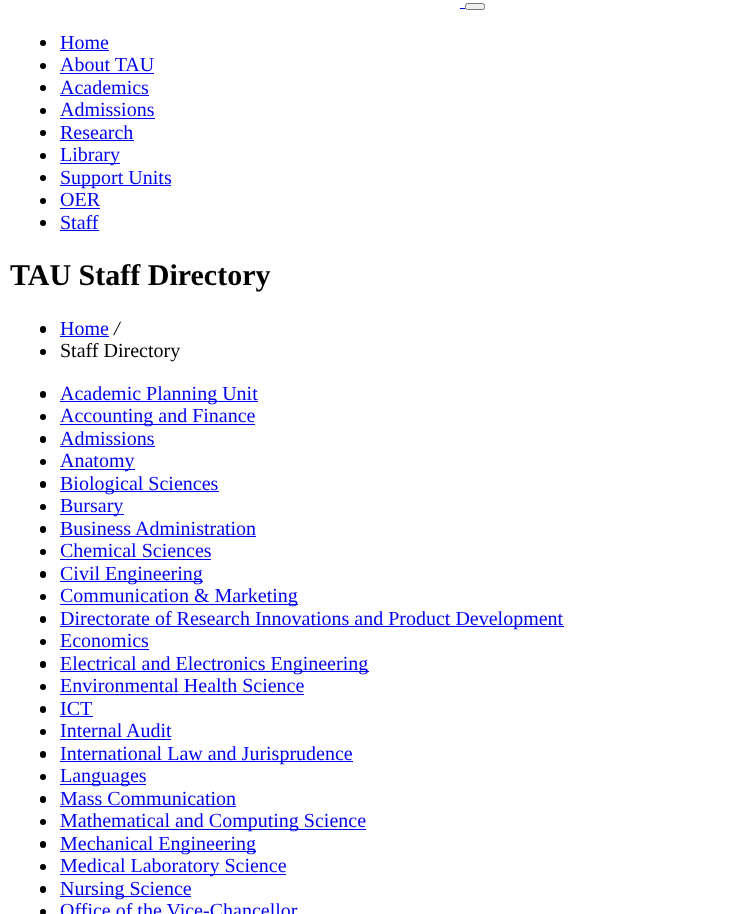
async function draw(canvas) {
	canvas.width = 735;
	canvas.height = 914;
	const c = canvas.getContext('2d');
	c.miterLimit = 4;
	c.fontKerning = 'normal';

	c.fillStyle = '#fff';
	c.fillRect(0, 0, 735, 914);
	c.fillStyle = '#00e';
	c.fillRect(460, 8, 5, 1);
	c.fillStyle = '#efefef';
	c.beginPath();
	c.roundRect(465.5, 3.5, 19, 6, 2);
	c.fill();
	c.strokeStyle = '#767676';
	c.stroke();
	c.fillStyle = '#000';
	c.beginPath();
	c.arc(43, 43, 3, 0, 2 * Math.PI);
	c.fill();
	c.font = '20px Liberation Serif';
	c.fillStyle = '#00e';
	c.fillText('Home', 60, 49);
	c.fillRect(60, 50, 49, 1);
	c.fillStyle = '#000';
	c.beginPath();
	c.arc(43, 66, 3, 0, 2 * Math.PI);
	c.fill();
	c.fillStyle = '#00e';
	c.fillText('About TAU', 60, 71);
	c.fillRect(60, 73, 94, 1);
	c.fillStyle = '#000';
	c.beginPath();
	c.arc(43, 88, 3, 0, 2 * Math.PI);
	c.fill();
	c.fillStyle = '#00e';
	c.fillText('Academics', 60, 94);
	c.fillRect(60, 95, 89, 1);
	c.fillStyle = '#000';
	c.beginPath();
	c.arc(43, 111, 3, 0, 2 * Math.PI);
	c.fill();
	c.fillStyle = '#00e';
	c.fillText('Admissions', 60, 116);
	c.fillRect(60, 118, 95, 1);
	c.fillStyle = '#000';
	c.beginPath();
	c.arc(43, 133, 3, 0, 2 * Math.PI);
	c.fill();
	c.fillStyle = '#00e';
	c.fillText('Research', 60, 139);
	c.fillRect(60, 140, 74, 1);
	c.fillStyle = '#000';
	c.beginPath();
	c.arc(43, 156, 3, 0, 2 * Math.PI);
	c.fill();
	c.fillStyle = '#00e';
	c.fillRect(60, 163, 60, 1);
	c.fillText('Library', 60, 161);
	c.fillStyle = '#000';
	c.beginPath();
	c.arc(43, 178, 3, 0, 2 * Math.PI);
	c.fill();
	c.fillStyle = '#00e';
	c.fillRect(60, 185, 111, 1);
	c.fillText('Support Units', 60, 184);
	c.fillStyle = '#000';
	c.beginPath();
	c.arc(43, 201, 3, 0, 2 * Math.PI);
	c.fill();
	c.fillStyle = '#00e';
	c.fillText('OER', 60, 206);
	c.fillRect(60, 208, 40, 1);
	c.fillStyle = '#000';
	c.beginPath();
	c.arc(43, 223, 3, 0, 2 * Math.PI);
	c.fill();
	c.fillStyle = '#00e';
	c.fillText('Staff', 60, 229);
	c.fillRect(60, 230, 39, 1);
	c.font = 'bold 30px Liberation Serif';
	c.fillStyle = '#000';
	c.fillText('TAU Staff Directory', 10, 285);
	c.beginPath();
	c.roundRect(40, 326, 6, 7, 3);
	c.fill();
	c.font = '20px Liberation Serif';
	c.fillStyle = '#00e';
	c.fillText('Home', 60, 335);
	c.fillRect(60, 336, 49, 1);
	c.font = 'italic 20px Liberation Serif';
	c.fillStyle = '#000';
	c.fillText('/', 114, 335);
	c.beginPath();
	c.arc(43, 352, 3, 0, 2 * Math.PI);
	c.fill();
	c.font = '20px Liberation Serif';
	c.fillText('Staff Directory', 60, 357);
	c.beginPath();
	c.roundRect(40, 391, 6, 7, 3);
	c.fill();
	c.fillStyle = '#00e';
	c.fillRect(60, 401, 198, 1);
	c.fillText('Academic Planning Unit', 60, 400);
	c.fillStyle = '#000';
	c.beginPath();
	c.arc(43, 417, 3, 0, 2 * Math.PI);
	c.fill();
	c.fillStyle = '#00e';
	c.fillRect(60, 424, 195, 1);
	c.fillText('Accounting and Finance', 60, 422);
	c.fillStyle = '#000';
	c.beginPath();
	c.roundRect(40, 436, 6, 7, 3);
	c.fill();
	c.fillStyle = '#00e';
	c.fillText('Admissions', 60, 445);
	c.fillRect(60, 446, 95, 1);
	c.fillStyle = '#000';
	c.beginPath();
	c.arc(43, 462, 3, 0, 2 * Math.PI);
	c.fill();
	c.fillStyle = '#00e';
	c.fillRect(60, 469, 75, 1);
	c.fillText('Anatomy', 60, 467);
	c.fillStyle = '#000';
	c.beginPath();
	c.roundRect(40, 481, 6, 7, 3);
	c.fill();
	c.fillStyle = '#00e';
	c.fillRect(60, 491, 159, 1);
	c.fillText('Biological Sciences', 60, 490);
	c.fillStyle = '#000';
	c.beginPath();
	c.arc(43, 507, 3, 0, 2 * Math.PI);
	c.fill();
	c.fillStyle = '#00e';
	c.fillRect(60, 514, 64, 1);
	c.fillText('Bursary', 60, 512);
	c.fillStyle = '#000';
	c.beginPath();
	c.roundRect(40, 526, 6, 7, 3);
	c.fill();
	c.fillStyle = '#00e';
	c.fillText('Business Administration', 60, 535);
	c.fillRect(60, 536, 196, 1);
	c.fillStyle = '#000';
	c.beginPath();
	c.arc(43, 552, 3, 0, 2 * Math.PI);
	c.fill();
	c.fillStyle = '#00e';
	c.fillText('Chemical Sciences', 60, 557);
	c.fillRect(60, 559, 151, 1);
	c.fillStyle = '#000';
	c.beginPath();
	c.roundRect(40, 571, 6, 7, 3);
	c.fill();
	c.fillStyle = '#00e';
	c.fillRect(60, 581, 143, 1);
	c.fillText('Civil Engineering', 60, 580);
	c.fillStyle = '#000';
	c.beginPath();
	c.arc(43, 597, 3, 0, 2 * Math.PI);
	c.fill();
	c.fillStyle = '#00e';
	c.fillRect(60, 604, 238, 1);
	c.fillText('Communication & Marketing', 60, 602);
	c.fillStyle = '#000';
	c.beginPath();
	c.roundRect(40, 616, 6, 7, 3);
	c.fill();
	c.fillStyle = '#00e';
	c.fillRect(60, 626, 504, 1);
	c.fillText('Directorate of Research Innovations and Product Development', 60, 625);
	c.fillStyle = '#000';
	c.beginPath();
	c.arc(43, 642, 3, 0, 2 * Math.PI);
	c.fill();
	c.fillStyle = '#00e';
	c.fillText('Economics', 60, 647);
	c.fillRect(60, 649, 89, 1);
	c.fillStyle = '#000';
	c.beginPath();
	c.roundRect(40, 661, 6, 7, 3);
	c.fill();
	c.fillStyle = '#00e';
	c.fillRect(60, 671, 309, 1);
	c.fillText('Electrical and Electronics Engineering', 60, 670);
	c.fillStyle = '#000';
	c.beginPath();
	c.arc(43, 687, 3, 0, 2 * Math.PI);
	c.fill();
	c.fillStyle = '#00e';
	c.fillText('Environmental Health Science', 60, 692);
	c.fillRect(60, 694, 244, 1);
	c.fillStyle = '#000';
	c.beginPath();
	c.roundRect(40, 706, 6, 7, 3);
	c.fill();
	c.fillStyle = '#00e';
	c.fillText('ICT', 60, 715);
	c.fillRect(60, 716, 33, 1);
	c.fillStyle = '#000';
	c.beginPath();
	c.arc(43, 732, 3, 0, 2 * Math.PI);
	c.fill();
	c.fillStyle = '#00e';
	c.fillText('Internal Audit', 60, 737);
	c.fillRect(60, 739, 111, 1);
	c.fillStyle = '#000';
	c.beginPath();
	c.roundRect(40, 751, 6, 7, 3);
	c.fill();
	c.fillStyle = '#00e';
	c.fillRect(60, 761, 293, 1);
	c.fillText('International Law and Jurisprudence', 60, 760);
	c.fillStyle = '#000';
	c.beginPath();
	c.arc(43, 777, 3, 0, 2 * Math.PI);
	c.fill();
	c.fillStyle = '#00e';
	c.fillRect(60, 784, 86, 1);
	c.fillText('Languages', 60, 782);
	c.fillStyle = '#000';
	c.beginPath();
	c.roundRect(40, 796, 6, 7, 3);
	c.fill();
	c.fillStyle = '#00e';
	c.fillText('Mass Communication', 60, 805);
	c.fillRect(60, 806, 176, 1);
	c.fillStyle = '#000';
	c.beginPath();
	c.arc(43, 822, 3, 0, 2 * Math.PI);
	c.fill();
	c.fillStyle = '#00e';
	c.fillRect(60, 829, 306, 1);
	c.fillText('Mathematical and Computing Science', 60, 827);
	c.fillStyle = '#000';
	c.beginPath();
	c.roundRect(40, 841, 6, 7, 3);
	c.fill();
	c.fillStyle = '#00e';
	c.fillRect(60, 851, 196, 1);
	c.fillText('Mechanical Engineering', 60, 850);
	c.fillStyle = '#000';
	c.beginPath();
	c.arc(43, 867, 3, 0, 2 * Math.PI);
	c.fill();
	c.fillStyle = '#00e';
	c.fillRect(60, 874, 226, 1);
	c.fillText('Medical Laboratory Science', 60, 872);
	c.fillStyle = '#000';
	c.beginPath();
	c.roundRect(40, 886, 6, 7, 3);
	c.fill();
	c.fillStyle = '#00e';
	c.fillRect(60, 896, 131, 1);
	c.fillText('Nursing Science', 60, 895);
	c.fillStyle = '#000';
	c.beginPath();
	c.arc(43, 912, 3, 0, 2 * Math.PI);
	c.fill();
	c.fillStyle = '#00e';
	c.fillText('Office of the Vice-Chancellor', 60, 917);
}

draw(document.querySelector('canvas'));
